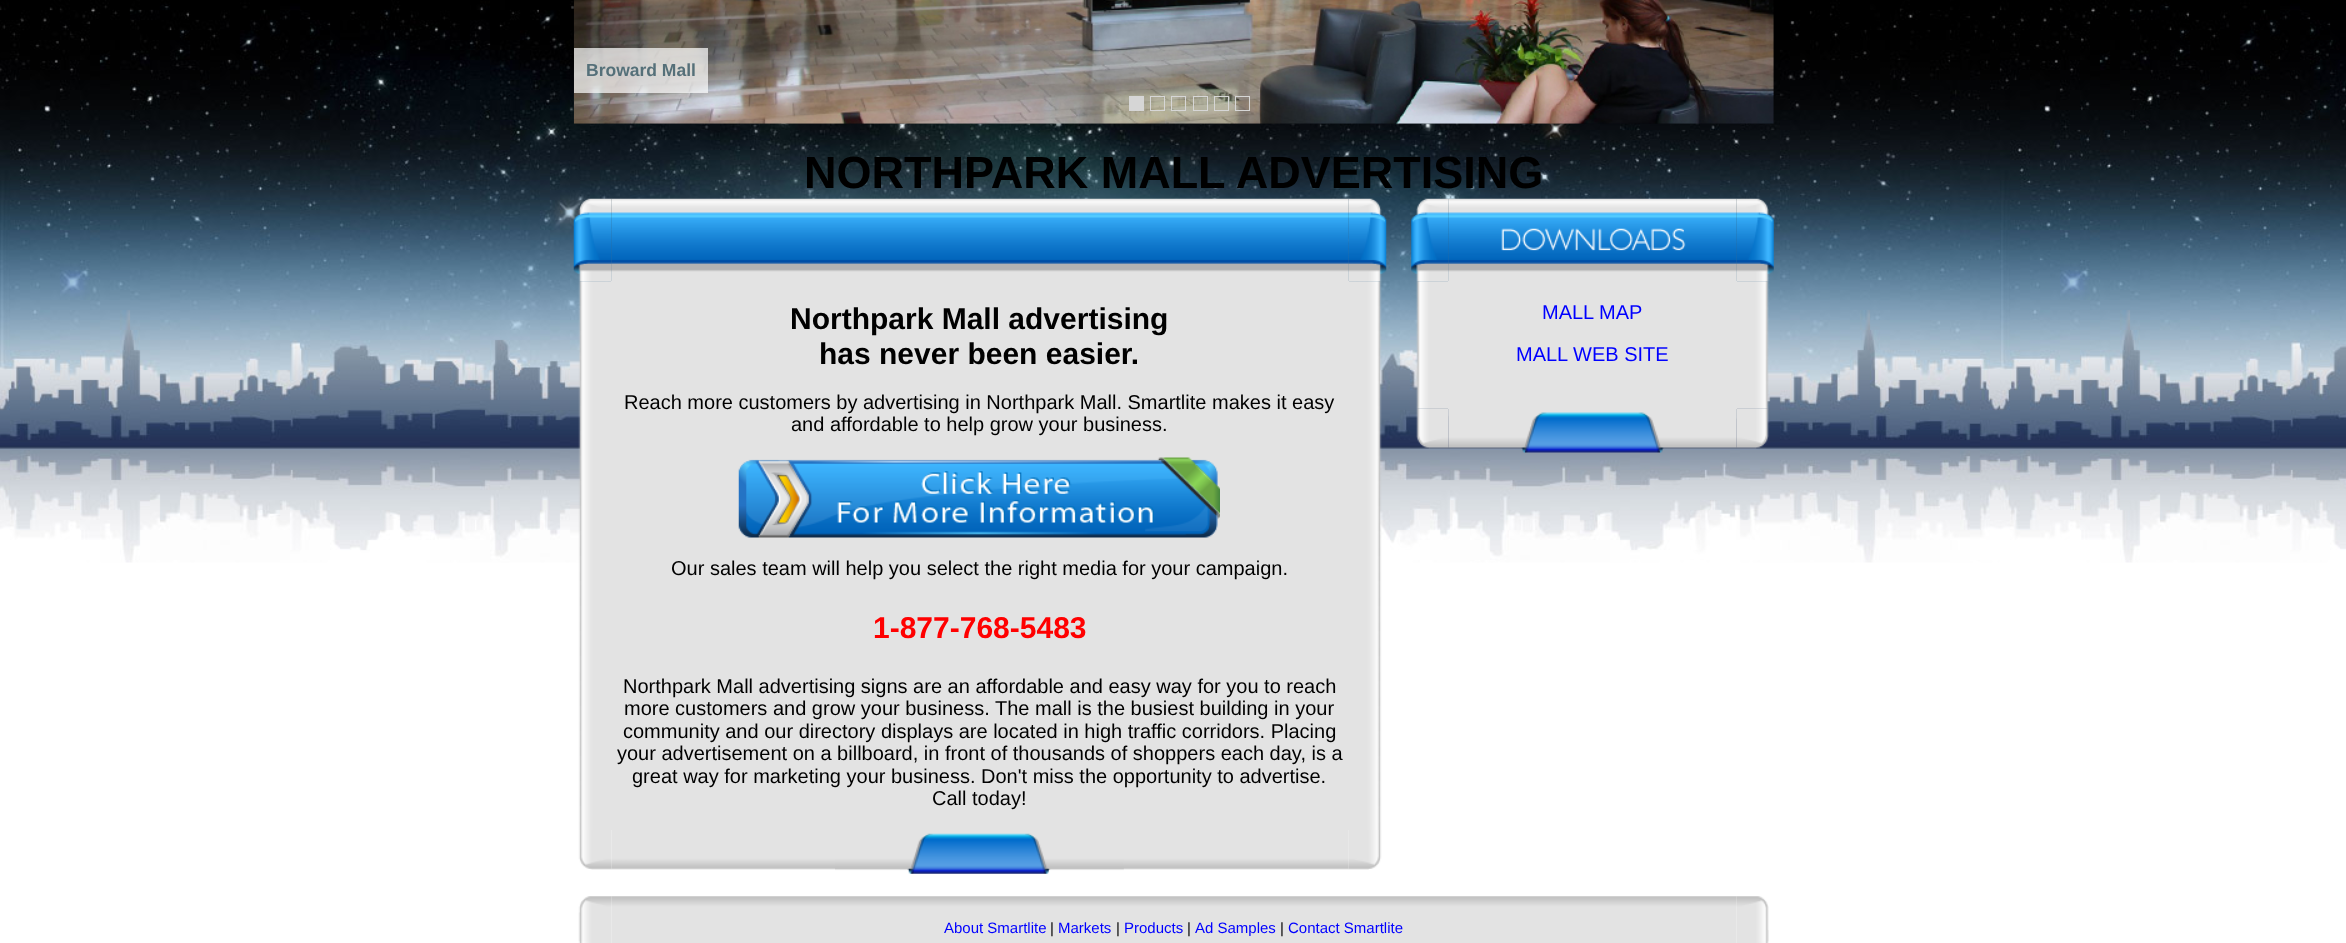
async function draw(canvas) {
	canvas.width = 2346;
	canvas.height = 943;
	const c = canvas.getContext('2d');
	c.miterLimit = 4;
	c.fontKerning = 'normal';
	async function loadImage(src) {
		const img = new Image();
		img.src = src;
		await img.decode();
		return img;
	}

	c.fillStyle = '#fff';
	c.fillRect(0, 0, 2346, 943);
	c.drawImage(await loadImage('img1.png'), 0, 0, 2346, 563);
	c.drawImage(await loadImage('img2.png'), 573, 0, 1201, 124);
	c.fillStyle = '#ffffffb3';
	c.fillRect(574, 48, 134, 45);
	c.font = 'bold 17.5px Liberation Sans';
	c.fillStyle = '#557079';
	c.fillText('Broward Mall', 586, 76);
	c.fillStyle = '#d6d6d6';
	c.fillRect(1129, 96, 15, 15);
	c.strokeStyle = '#d6d6d6';
	c.strokeRect(1150.5, 96.5, 14, 14);
	c.strokeRect(1171.5, 96.5, 14, 14);
	c.strokeRect(1193.5, 96.5, 14, 14);
	c.strokeRect(1214.5, 96.5, 14, 14);
	c.strokeRect(1235.5, 96.5, 14, 14);
	c.font = 'bold 45px Liberation Sans';
	c.fillStyle = '#000';
	c.fillText('NORTHPARK MALL ADVERTISING', 804, 188);
	c.drawImage(await loadImage('img3.png'), 573, 198, 39, 84);
	c.drawImage(await loadImage('img4.png'), 611, 198, 738, 83);
	c.drawImage(await loadImage('img5.png'), 1348, 198, 39, 84);
	c.drawImage(await loadImage('img6.png'), 578, 281, 33, 549);
	c.fillStyle = '#e3e3e3';
	c.fillRect(611, 281, 738, 549);
	c.font = 'bold 30px Liberation Sans';
	c.fillStyle = '#000';
	c.fillText('Northpark Mall advertising', 790, 329);
	c.fillText('has never been easier.', 819, 364);
	c.font = '20px Liberation Sans';
	c.fillText('Reach more customers by advertising in Northpark Mall. Smartlite makes it easy', 624, 409);
	c.fillText('and affordable to help grow your business.', 791, 431);
	c.drawImage(await loadImage('img7.png'), 738, 457, 482, 81);
	c.fillText('Our sales team will help you select the right media for your campaign.', 671, 575);
	c.font = 'bold 30px Liberation Sans';
	c.fillStyle = '#f00';
	c.fillText('1-877-768-5483', 873, 638);
	c.font = '20px Liberation Sans';
	c.fillStyle = '#000';
	for (const [text, x, y] of [
		['Northpark Mall advertising signs are an affordable and easy way for you to reach', 623, 693],
		['more customers and grow your business.', 624, 715],
		['The mall is the busiest building in your', 995, 715],
		['community and our directory displays are located in high traffic corridors. Placing', 623, 738],
		['your advertisement on a billboard, in front of thousands of shoppers each day, is a', 617, 760],
		['great way for marketing your business. Don\'t miss the opportunity to advertise.', 632, 783],
		['Call today!', 932, 805],
	]) {
		c.fillText(text, x, y);
	}
	c.drawImage(await loadImage('img8.png'), 1349, 281, 33, 549);
	c.drawImage(await loadImage('img9.png'), 578, 830, 34, 40);
	c.drawImage(await loadImage('img10.png'), 611, 830, 738, 40);
	c.drawImage(await loadImage('img11.png'), 835, 833, 289, 41);
	c.drawImage(await loadImage('img12.png'), 1348, 830, 34, 40);
	c.drawImage(await loadImage('img13.png'), 1411, 198, 38, 84);
	c.drawImage(await loadImage('img14.png'), 1448, 198, 289, 83);
	c.drawImage(await loadImage('img15.png'), 1736, 198, 38, 84);
	c.drawImage(await loadImage('img16.png'), 1416, 281, 32, 128);
	c.fillStyle = '#e3e3e3';
	c.fillRect(1448, 281, 289, 128);
	c.fillStyle = '#00f';
	c.fillText('MALL MAP', 1542, 319);
	c.fillText('MALL WEB SITE', 1516, 361);
	c.drawImage(await loadImage('img17.png'), 1737, 281, 32, 128);
	c.drawImage(await loadImage('img18.png'), 1416, 408, 33, 41);
	c.drawImage(await loadImage('img19.png'), 1448, 409, 289, 44);
	c.drawImage(await loadImage('img20.png'), 1736, 408, 33, 41);
	c.drawImage(await loadImage('img21.png'), 578, 896, 34, 47);
	c.drawImage(await loadImage('img22.png'), 611, 896, 1126, 47);
	c.font = '15px Liberation Sans';
	c.fillText('About Smartlite', 944, 933);
	c.fillStyle = '#000';
	c.fillText('|', 1050, 933);
	c.fillStyle = '#00f';
	c.fillText('Markets', 1058, 933);
	c.fillStyle = '#000';
	c.fillText('|', 1116, 933);
	c.fillStyle = '#00f';
	c.fillText('Products', 1124, 933);
	c.fillStyle = '#000';
	c.fillText('|', 1187, 933);
	c.fillStyle = '#00f';
	c.fillText('Ad Samples', 1195, 933);
	c.fillStyle = '#000';
	c.fillText('|', 1280, 933);
	c.fillStyle = '#00f';
	c.fillText('Contact Smartlite', 1288, 933);
	c.drawImage(await loadImage('img23.png'), 1736, 896, 33, 47);
}

draw(document.querySelector('canvas'));
